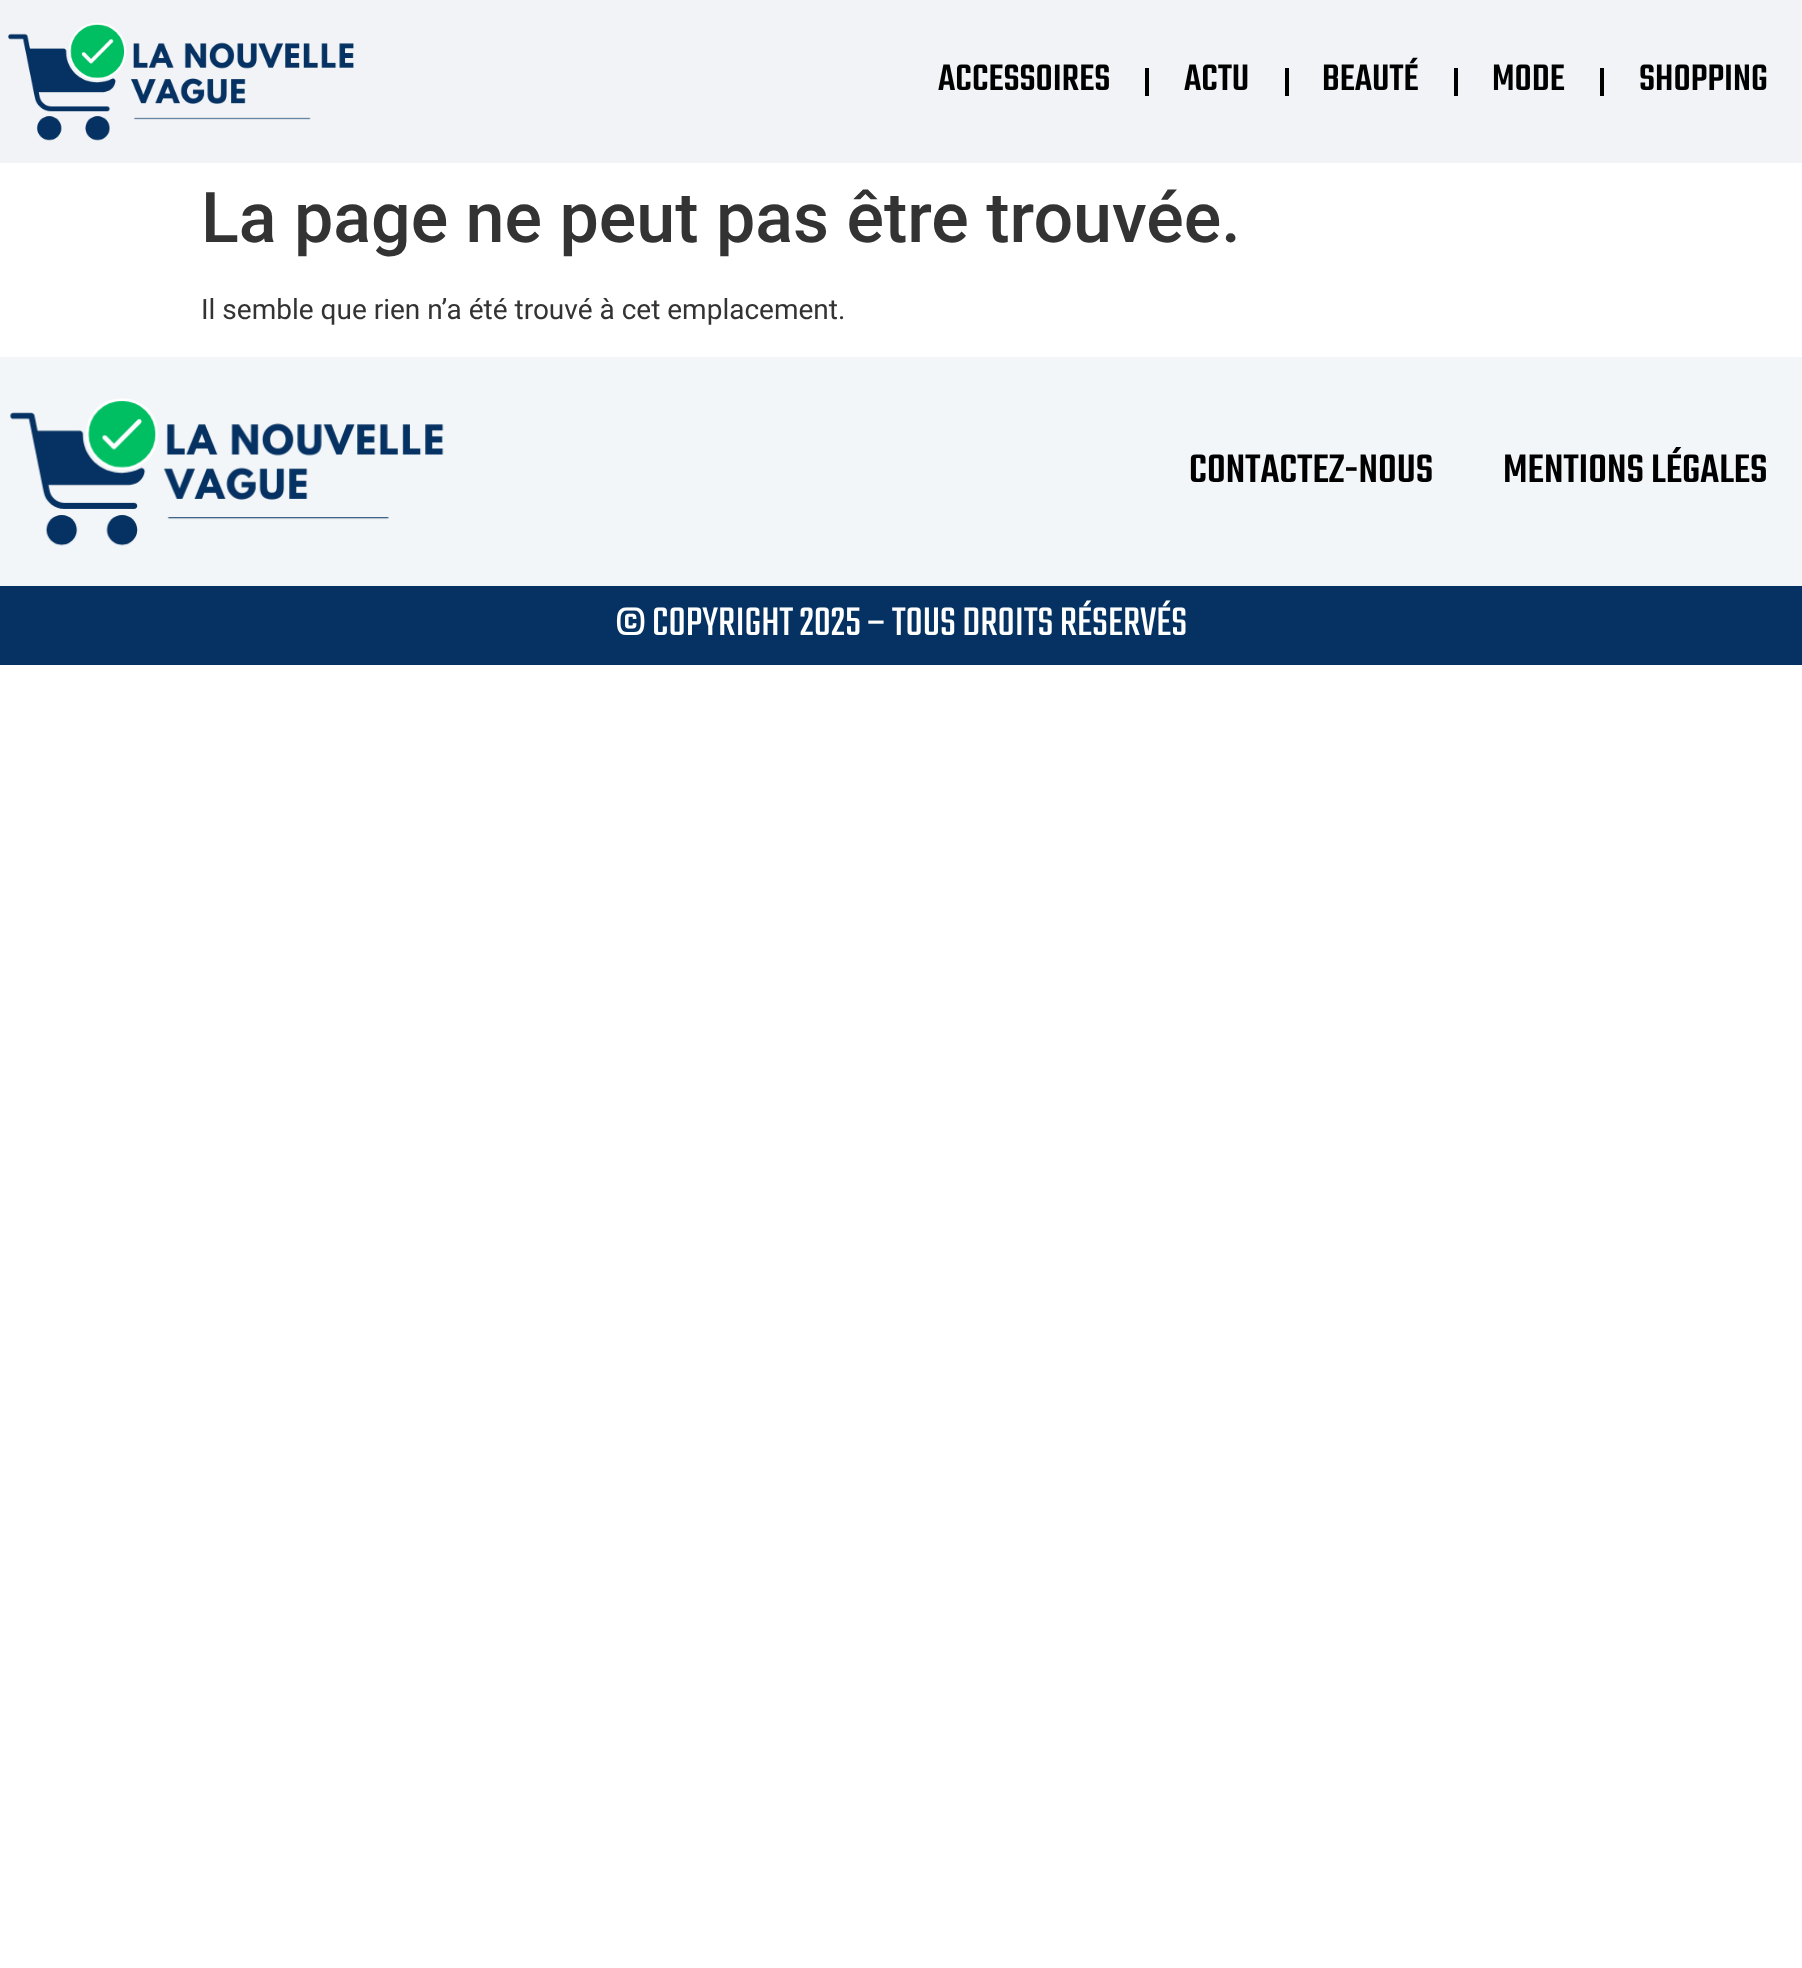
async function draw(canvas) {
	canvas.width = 1802;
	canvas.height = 1968;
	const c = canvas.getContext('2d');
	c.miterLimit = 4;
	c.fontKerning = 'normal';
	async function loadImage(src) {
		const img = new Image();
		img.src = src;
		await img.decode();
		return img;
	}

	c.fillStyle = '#fff';
	c.fillRect(0, 0, 1802, 1968);
	c.fillStyle = '#f1f3f6';
	c.fillRect(0, 0, 1802, 163);
	c.drawImage(await loadImage('img1.png'), 8, 22, 346, 119);
	c.font = '500 40.25px Teko';
	c.fillStyle = '#000';
	c.fillText('ACCESSOIRES', 938, 90);
	c.fillRect(1145, 68, 4, 28);
	c.fillText('ACTU', 1184, 90);
	c.fillRect(1285, 68, 4, 28);
	c.fillText('BEAUTÉ', 1322, 90);
	c.fillRect(1454, 68, 4, 28);
	c.fillText('MODE', 1492, 90);
	c.fillRect(1600, 68, 4, 28);
	c.fillText('SHOPPING', 1639, 90);
	c.font = '500 70px Roboto';
	c.fillStyle = '#333';
	c.fillText('La page ne peut pas être trouvée.', 201, 242);
	c.font = '28px Roboto';
	c.fillText('Il semble que rien n’a été trouvé à cet emplacement.', 201, 319);
	c.fillStyle = '#f3f6f8';
	c.fillRect(0, 357, 1802, 229);
	c.drawImage(await loadImage('img2.png'), 10, 398, 434, 148);
	c.font = '500 43.75px Teko';
	c.fillStyle = '#000';
	c.fillText('CONTACTEZ-NOUS', 1189, 482);
	c.fillText('MENTIONS LÉGALES', 1503, 482);
	c.fillStyle = '#053262';
	c.fillRect(0, 586, 1802, 79);
	c.font = '43.75px Teko';
	c.fillStyle = '#fff';
	c.fillText('© COPYRIGHT 2025 – TOUS DROITS RÉSERVÉS', 615, 635);
}

draw(document.querySelector('canvas'));
